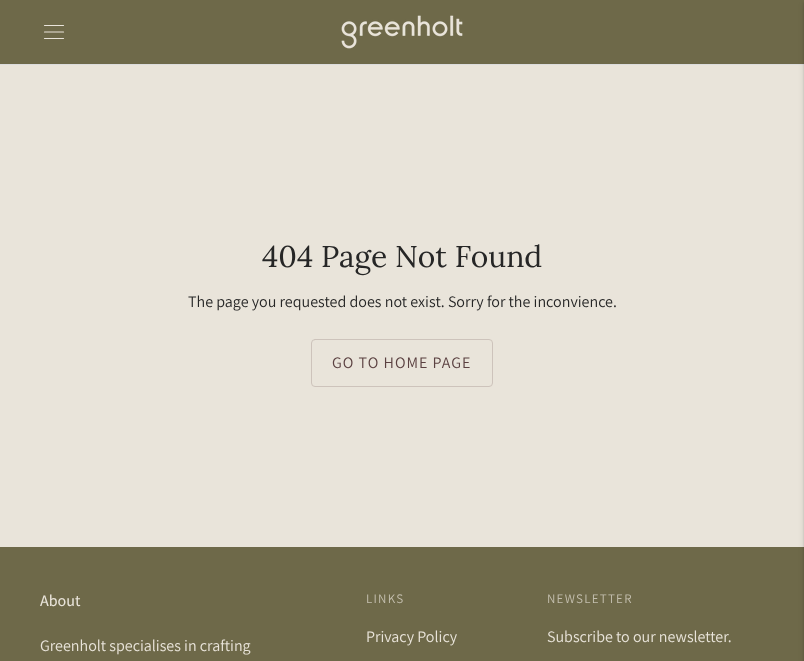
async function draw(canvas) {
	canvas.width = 804;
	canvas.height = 661;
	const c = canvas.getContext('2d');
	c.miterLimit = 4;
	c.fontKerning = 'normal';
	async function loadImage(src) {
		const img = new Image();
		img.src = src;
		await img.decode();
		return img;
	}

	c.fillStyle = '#e9e4da';
	c.fillRect(0, 0, 804, 661);
	c.fillStyle = '#6e6949';
	c.fillRect(0, 0, 804, 64);
	c.fillStyle = '#dcdcdc';
	c.fillRect(0, 64, 804, 1);
	c.beginPath();
	c.moveTo(44.5, 32);
	c.lineTo(63.5, 32);
	c.moveTo(44.5, 25.5);
	c.lineTo(63.5, 25.5);
	c.moveTo(44.5, 38.5);
	c.lineTo(63.5, 38.5);
	c.strokeStyle = '#e9e4da';
	c.lineWidth = 1.2;
	c.lineCap = 'round';
	c.lineJoin = 'round';
	c.stroke();
	c.drawImage(await loadImage('img1.png'), 341, 15, 122, 34);
	c.font = '30px Lora';
	c.fillStyle = '#262626';
	c.fillText('404 Page Not Found', 262, 267);
	c.font = '16px Assistant';
	c.fillText('The page you requested does not exist. Sorry for the inconvience.', 188, 307);
	c.beginPath();
	c.roundRect(311.5, 339.5, 181, 47, 3.5);
	c.strokeStyle = '#cdc3bb';
	c.lineWidth = 1;
	c.lineJoin = 'miter';
	c.stroke();
	c.letterSpacing = '1px';
	c.fillStyle = '#5b4141';
	c.fillText('GO TO HOME PAGE', 332, 368);
	c.fillStyle = '#6e6949';
	c.fillRect(0, 547, 804, 114);
	c.fillStyle = '#0000001a';
	c.filter = 'blur(3px)';
	c.beginPath();
	c.rect(804, 4, 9, 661);
	c.fill();
	c.filter = 'none';
	c.fillStyle = '#00000026';
	c.filter = 'blur(1px)';
	c.beginPath();
	c.rect(804, 2, 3, 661);
	c.fill();
	c.filter = 'none';
	c.letterSpacing = '0px';
	c.font = '500 16px Assistant';
	c.fillStyle = '#e9e4da';
	c.fillText('About', 40, 606);
	c.font = '16px Assistant';
	c.fillText('Greenholt specialises in crafting', 40, 651);
	c.letterSpacing = '1.25px';
	c.font = '13px Assistant';
	c.fillStyle = '#c4bfaf';
	c.fillText('LINKS', 366, 603);
	c.letterSpacing = '0px';
	c.font = '16px Assistant';
	c.fillStyle = '#e9e4da';
	c.fillText('Privacy Policy', 366, 642);
	c.letterSpacing = '1.25px';
	c.font = '13px Assistant';
	c.fillStyle = '#c4bfaf';
	c.fillText('NEWSLETTER', 547, 603);
	c.letterSpacing = '0px';
	c.font = '16px Assistant';
	c.fillStyle = '#e9e4da';
	c.fillText('Subscribe to our newsletter.', 547, 642);
}

draw(document.querySelector('canvas'));
